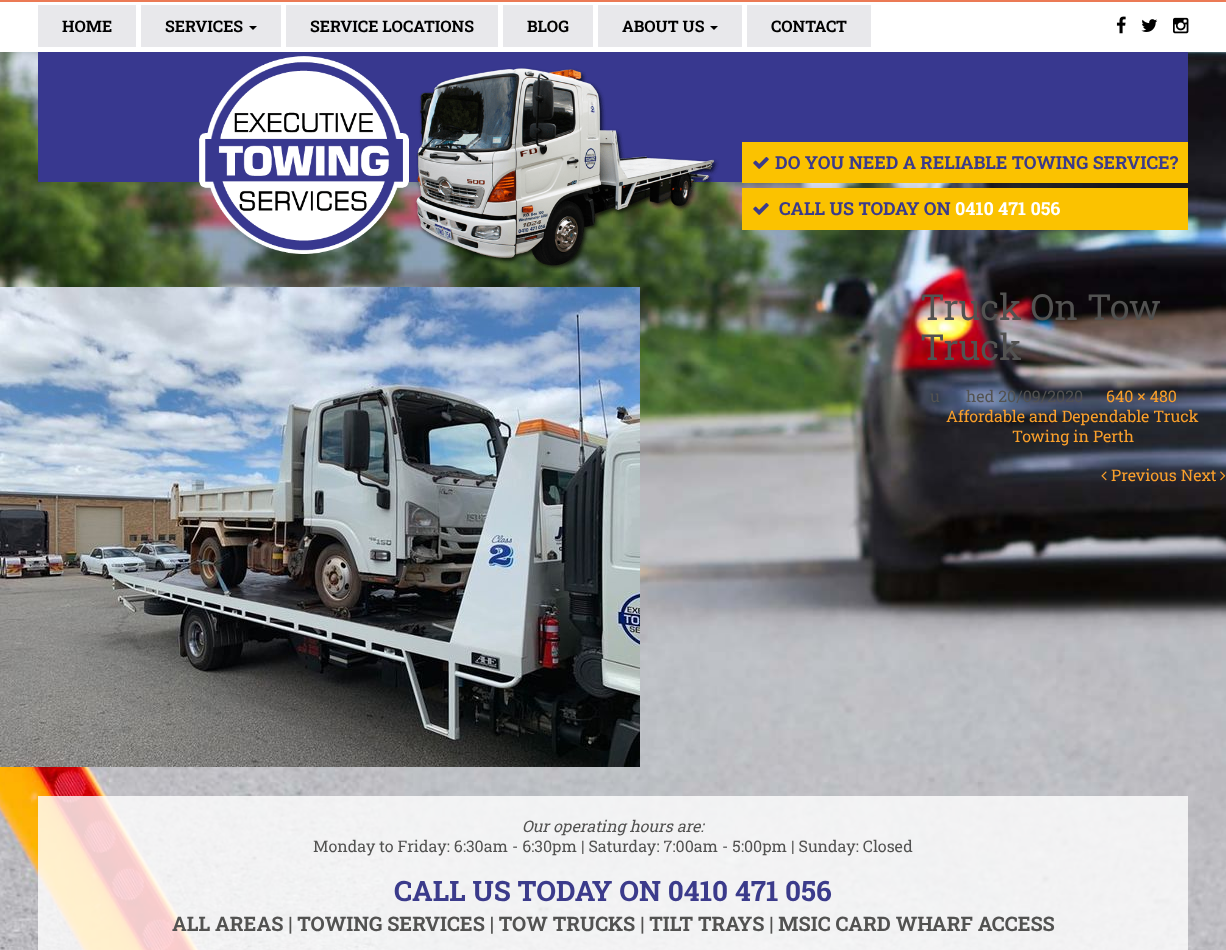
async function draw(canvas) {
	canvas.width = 1226;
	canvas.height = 950;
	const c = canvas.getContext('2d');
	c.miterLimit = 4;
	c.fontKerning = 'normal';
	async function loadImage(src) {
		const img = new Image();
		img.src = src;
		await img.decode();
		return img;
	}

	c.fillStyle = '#fff';
	c.fillRect(0, 0, 1226, 950);
	c.drawImage(await loadImage('img1.png'), 0, 52, 1226, 898);
	c.fillStyle = '#eb7a55';
	c.fillRect(0, 0, 1226, 2);
	c.fillStyle = '#e8e8eb';
	c.fillRect(38, 5, 98, 42);
	c.font = 'bold 16px Roboto Slab';
	c.fillStyle = '#000';
	c.fillText('HOME', 62, 32);
	c.fillStyle = '#e8e8eb';
	c.fillRect(141, 5, 140, 42);
	c.fillStyle = '#000';
	c.fillText('SERVICES', 165, 32);
	c.beginPath();
	c.moveTo(249, 26);
	c.lineTo(257, 26);
	c.lineTo(253, 30);
	c.closePath();
	c.fill();
	c.fillStyle = '#e8e8eb';
	c.fillRect(286, 5, 212, 42);
	c.fillStyle = '#000';
	c.fillText('SERVICE LOCATIONS', 310, 32);
	c.fillStyle = '#e8e8eb';
	c.fillRect(503, 5, 90, 42);
	c.fillStyle = '#000';
	c.fillText('BLOG', 527, 32);
	c.fillStyle = '#e8e8eb';
	c.fillRect(598, 5, 144, 42);
	c.fillStyle = '#000';
	c.fillText('ABOUT US', 622, 32);
	c.beginPath();
	c.moveTo(710, 26);
	c.lineTo(718, 26);
	c.lineTo(714, 30);
	c.closePath();
	c.fill();
	c.fillStyle = '#e8e8eb';
	c.fillRect(747, 5, 124, 42);
	c.fillStyle = '#000';
	c.fillText('CONTACT', 771, 32);
	c.drawImage(await loadImage('img2.png'), 1116, 16, 10, 18);
	c.drawImage(await loadImage('img3.png'), 1141, 19, 17, 13);
	c.drawImage(await loadImage('img4.png'), 1173, 17, 16, 17);
	c.drawImage(await loadImage('img5.png'), 38, 52, 1150, 219);
	c.fillStyle = '#fbc200';
	c.fillRect(742, 142, 446, 41);
	c.drawImage(await loadImage('img6.png'), 753, 157, 16, 12);
	c.font = 'bold 18px Roboto Slab';
	c.fillStyle = '#3b3b8b';
	c.fillText('DO YOU NEED A RELIABLE TOWING SERVICE?', 775, 169);
	c.fillStyle = '#fbc200';
	c.fillRect(742, 188, 446, 42);
	c.drawImage(await loadImage('img6.png'), 753, 203, 16, 12);
	c.fillStyle = '#3b3b8b';
	c.fillText('CALL US TODAY ON', 779, 215);
	c.fillStyle = '#fff';
	c.fillText('0410 471 056', 955, 215);
	c.drawImage(await loadImage('img7.png'), 0, 287, 640, 480);
	c.font = '36px Roboto Slab';
	c.fillStyle = '#525251';
	c.fillText('Truck On Tow', 920, 320);
	c.fillText('Truck', 920, 360);
	c.font = '16px Roboto Slab';
	c.fillText('u', 930, 402);
	c.fillText('hed 20/09/2020', 966, 402);
	c.fillStyle = '#f99f2b';
	for (const [text, x, y] of [
		['640 × 480', 1106, 402],
		['Affordable and Dependable Truck', 946, 422],
		['Towing in Perth', 1012, 442],
	]) {
		c.fillText(text, x, y);
	}
	c.drawImage(await loadImage('img8.png'), 1101, 471, 6, 10);
	c.fillText('Previous Next', 1111, 481);
	c.drawImage(await loadImage('img9.png'), 1220, 471, 6, 10);
	c.fillStyle = '#ffffffcc';
	c.fillRect(38, 796, 1150, 154);
	c.font = 'italic 16px Roboto Slab';
	c.fillStyle = '#525251';
	c.fillText('Our operating hours are:', 522, 832);
	c.font = '16px Roboto Slab';
	c.fillText('Monday to Friday: 6:30am - 6:30pm | Saturday: 7:00am - 5:00pm | Sunday: Closed', 313, 852);
	c.font = 'bold 28px Roboto Slab';
	c.fillStyle = '#3b3b8b';
	c.fillText('CALL US TODAY ON 0410 471 056', 394, 901);
	c.font = 'bold 20px Roboto Slab';
	c.fillStyle = '#525251';
	c.fillText('ALL AREAS | TOWING SERVICES | TOW TRUCKS | TILT TRAYS | MSIC CARD WHARF ACCESS', 172, 931);
}

draw(document.querySelector('canvas'));
